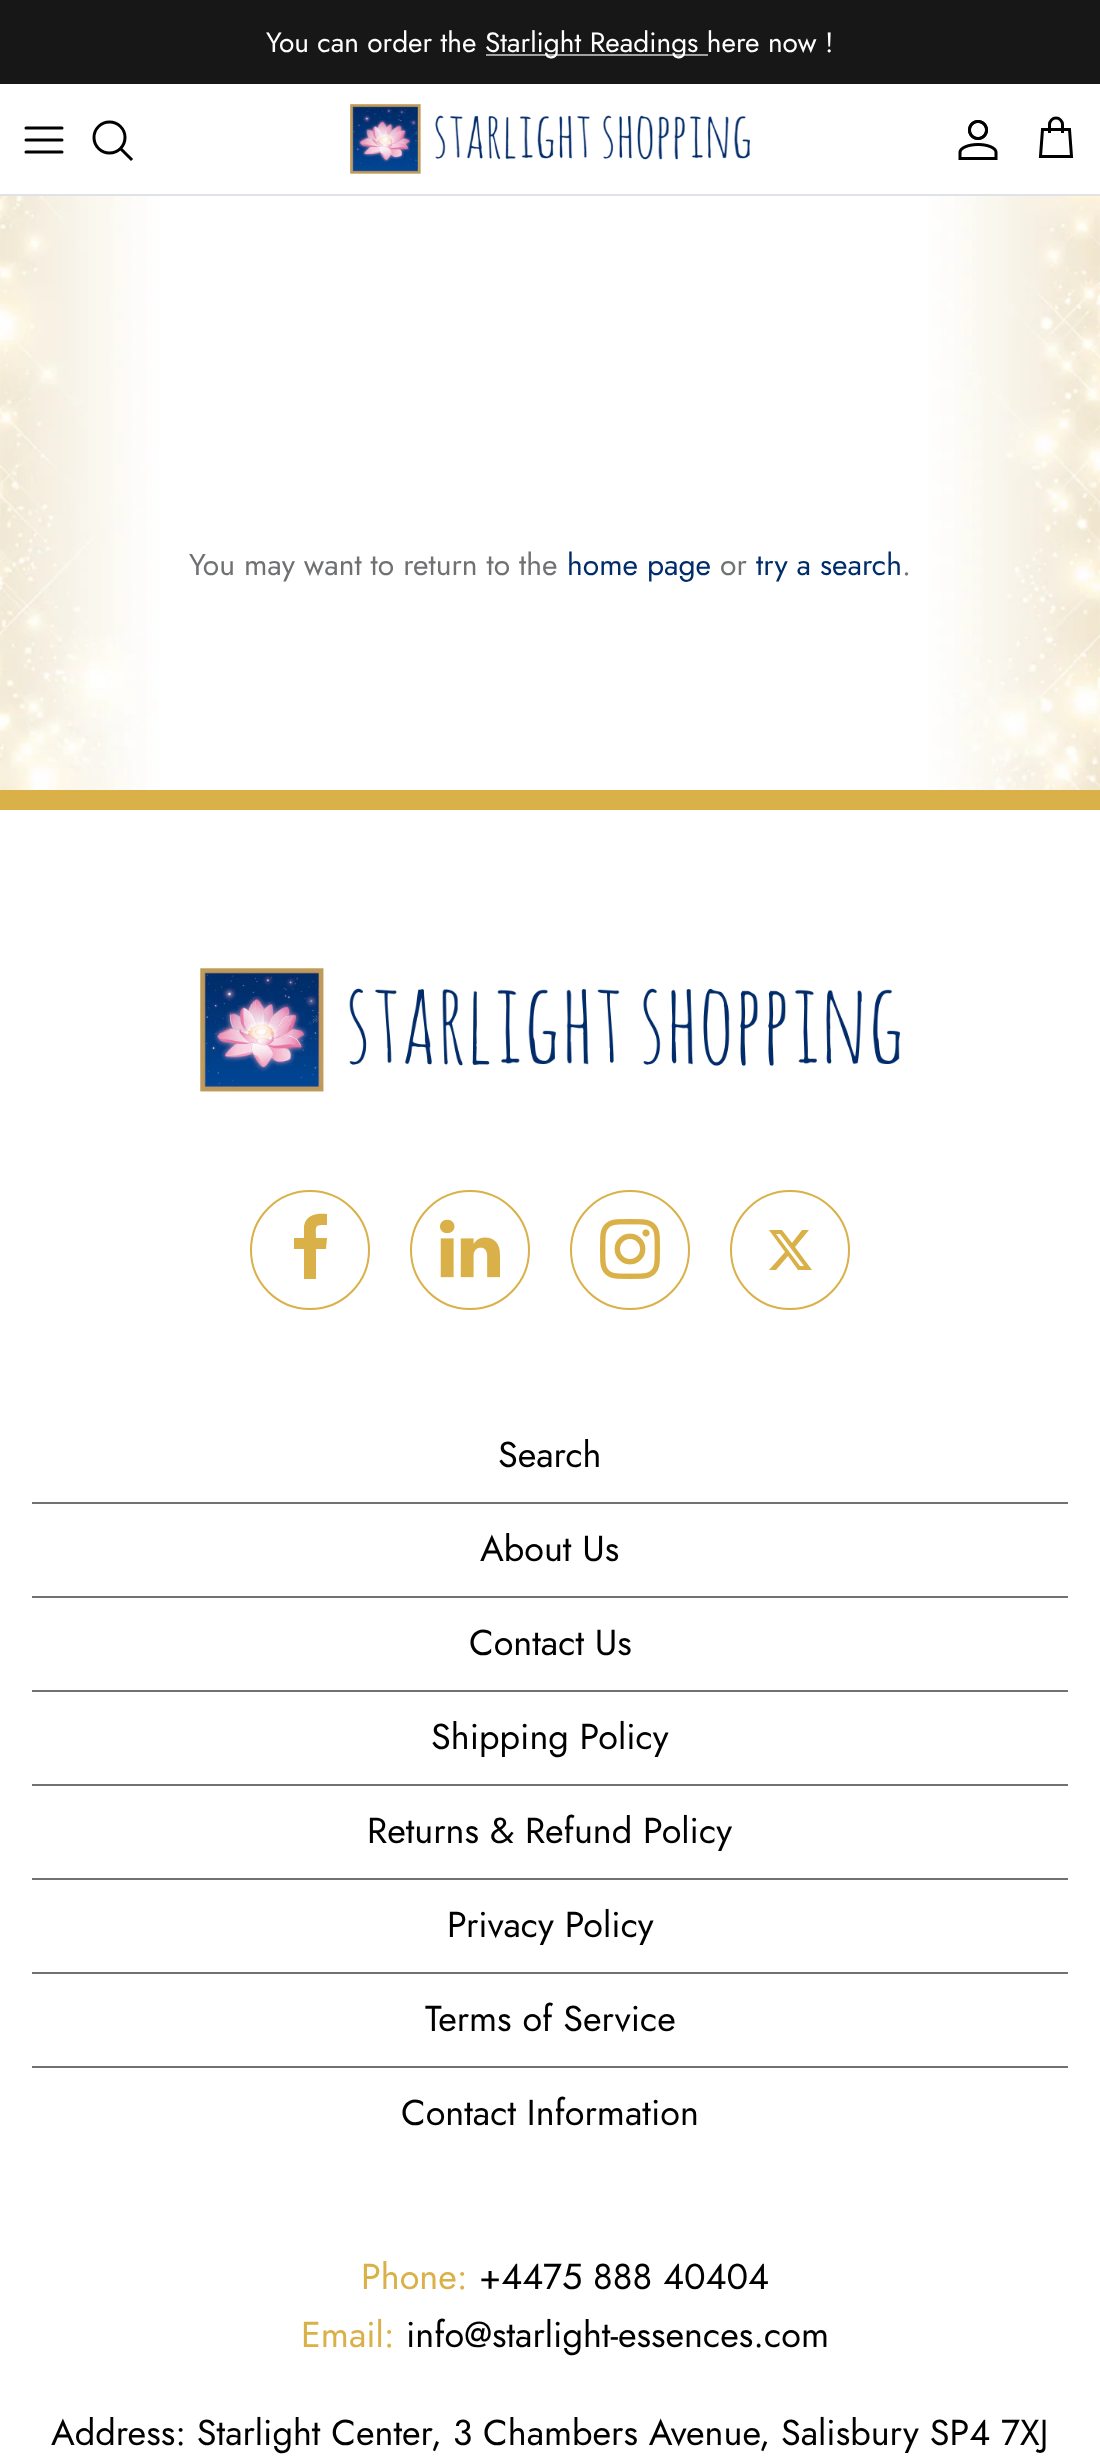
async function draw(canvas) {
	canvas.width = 1100;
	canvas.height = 2457;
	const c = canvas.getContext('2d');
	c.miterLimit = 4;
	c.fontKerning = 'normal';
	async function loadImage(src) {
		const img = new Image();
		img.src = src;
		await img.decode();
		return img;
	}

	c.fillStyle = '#fff';
	c.fillRect(0, 0, 1100, 2457);
	c.drawImage(await loadImage('img1.png'), 0, 196, 1100, 594);
	c.fillStyle = '#171717';
	c.fillRect(0, 0, 1100, 84);
	c.font = '28px Jost';
	c.fillStyle = '#fff';
	c.fillText('You can order the', 266, 52);
	c.fillStyle = '#a2a2a2';
	c.fillRect(486, 54, 222, 2);
	c.fillStyle = '#fff';
	c.fillText('Starlight Readings here now !', 485, 52);
	c.fillStyle = '#dfe3e8';
	c.fillRect(0, 194, 1100, 2);
	c.beginPath();
	c.moveTo(26, 140);
	c.lineTo(62, 140);
	c.moveTo(26, 128);
	c.lineTo(62, 128);
	c.moveTo(26, 152);
	c.lineTo(62, 152);
	c.strokeStyle = '#000';
	c.lineWidth = 3;
	c.lineCap = 'round';
	c.lineJoin = 'round';
	c.stroke();
	c.beginPath();
	c.arc(109.5, 137.5, 15.5, 0, 2 * Math.PI);
	c.stroke();
	c.beginPath();
	c.moveTo(122, 150);
	c.lineTo(131, 159);
	c.lineCap = 'square';
	c.lineJoin = 'miter';
	c.stroke();
	c.drawImage(await loadImage('img2.png'), 350, 104, 400, 70);
	c.drawImage(await loadImage('img3.png'), 958, 120, 40, 40);
	c.beginPath();
	c.moveTo(1062.5, 133);
	c.lineTo(1062.5, 124.5);
	c.bezierCurveTo(1062.5, 121, 1059.5, 118, 1056, 118);
	c.bezierCurveTo(1052.5, 118, 1049.5, 121, 1049.5, 124.5);
	c.lineTo(1049.5, 133);
	c.moveTo(1042.5, 129.5);
	c.lineTo(1069.5, 129.5);
	c.lineTo(1071.5, 156.5);
	c.lineTo(1040.5, 156.5);
	c.closePath();
	c.lineCap = 'butt';
	c.stroke();
	c.font = '30px Jost';
	c.fillStyle = '#707173';
	c.fillText('You may want to return to the', 189, 575);
	c.fillStyle = '#002c6a';
	c.fillText('home page', 567, 575);
	c.fillStyle = '#707173';
	c.fillText('or', 720, 575);
	c.fillStyle = '#002c6a';
	c.fillText('try a search', 756, 575);
	c.fillStyle = '#707173';
	c.fillText('.', 902, 575);
	c.fillStyle = '#dab048';
	c.fillRect(0, 790, 1100, 20);
	c.drawImage(await loadImage('img4.png'), 200, 968, 700, 124);
	c.beginPath();
	c.arc(310, 1250, 59, 0, 2 * Math.PI);
	c.strokeStyle = '#dab048';
	c.lineWidth = 2;
	c.stroke();
	c.beginPath();
	c.moveTo(327, 1214);
	c.lineTo(327, 1225);
	c.bezierCurveTo(314, 1225, 316, 1225, 316, 1238);
	c.lineTo(327, 1238);
	c.lineTo(326, 1249);
	c.lineTo(316, 1249);
	c.lineTo(316, 1279);
	c.lineTo(304, 1279);
	c.lineTo(304, 1249);
	c.lineTo(294, 1249);
	c.lineTo(294, 1238);
	c.lineTo(304, 1238);
	c.lineTo(304, 1226);
	c.bezierCurveTo(306, 1214, 318, 1213, 327, 1214);
	c.closePath();
	c.fill();
	c.beginPath();
	c.arc(470, 1250, 59, 0, 2 * Math.PI);
	c.stroke();
	c.drawImage(await loadImage('img5.png'), 440, 1219, 60, 59);
	c.beginPath();
	c.arc(630, 1250, 59, 0, 2 * Math.PI);
	c.stroke();
	c.drawImage(await loadImage('img6.png'), 600, 1219, 60, 60);
	c.beginPath();
	c.arc(790, 1250, 59, 0, 2 * Math.PI);
	c.stroke();
	c.beginPath();
	c.moveTo(802, 1230);
	c.lineTo(809, 1230);
	c.lineTo(795, 1247);
	c.lineTo(812, 1270);
	c.lineTo(798, 1270);
	c.lineTo(788, 1256);
	c.lineTo(776, 1270);
	c.lineTo(769, 1270);
	c.lineTo(785, 1252);
	c.lineTo(769, 1230);
	c.lineTo(782, 1230);
	c.lineTo(792, 1243);
	c.closePath();
	c.moveTo(800, 1266);
	c.lineTo(804, 1266);
	c.lineTo(780, 1234);
	c.lineTo(776, 1234);
	c.closePath();
	c.fill();
	c.fillStyle = '#707173';
	c.fillRect(32, 1502, 1036, 2);
	c.font = '36px Jost';
	c.fillStyle = '#000';
	c.fillText('Search', 498, 1467);
	c.fillStyle = '#707173';
	c.fillRect(32, 1596, 1036, 2);
	c.fillStyle = '#000';
	c.fillText('About Us', 480, 1561);
	c.fillStyle = '#707173';
	c.fillRect(32, 1690, 1036, 2);
	c.fillStyle = '#000';
	c.fillText('Contact Us', 469, 1655);
	c.fillStyle = '#707173';
	c.fillRect(32, 1784, 1036, 2);
	c.fillStyle = '#000';
	c.fillText('Shipping Policy', 431, 1749);
	c.fillStyle = '#707173';
	c.fillRect(32, 1878, 1036, 2);
	c.fillStyle = '#000';
	c.fillText('Returns & Refund Policy', 367, 1843);
	c.fillStyle = '#707173';
	c.fillRect(32, 1972, 1036, 2);
	c.fillStyle = '#000';
	c.fillText('Privacy Policy', 447, 1937);
	c.fillStyle = '#707173';
	c.fillRect(32, 2066, 1036, 2);
	c.fillStyle = '#000';
	c.fillText('Terms of Service', 425, 2031);
	c.fillText('Contact Information', 401, 2125);
	c.fillStyle = '#dab048';
	c.fillText('Phone:', 361, 2289);
	c.fillStyle = '#000';
	c.fillText('+4475 888 40404', 479, 2289);
	c.fillStyle = '#dab048';
	c.fillText('Email:', 301, 2347);
	c.fillStyle = '#000';
	c.fillText('info@starlight-essences.com', 406, 2347);
	c.fillText('Address: Starlight Center, 3 Chambers Avenue, Salisbury SP4 7XJ', 51, 2445);
}

draw(document.querySelector('canvas'));
